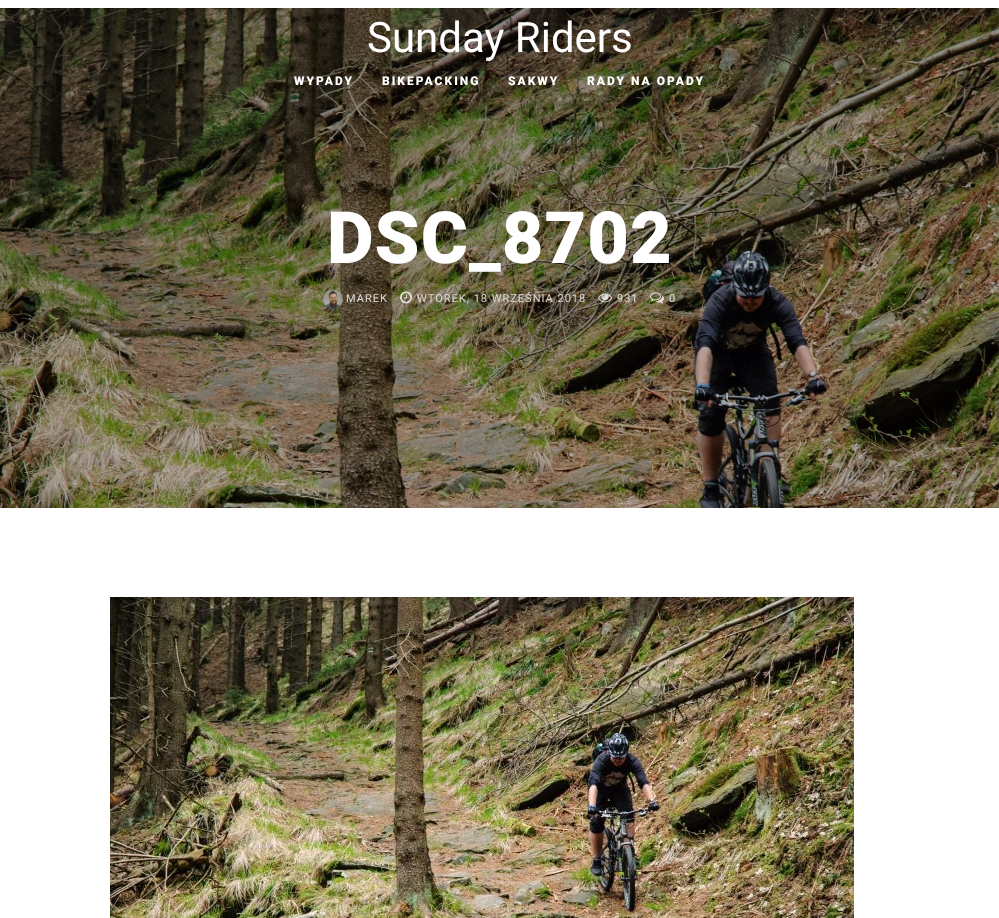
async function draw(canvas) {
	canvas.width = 999;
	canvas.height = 918;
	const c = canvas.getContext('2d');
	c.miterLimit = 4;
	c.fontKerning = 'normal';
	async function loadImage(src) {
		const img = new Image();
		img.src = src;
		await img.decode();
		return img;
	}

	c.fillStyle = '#fff';
	c.fillRect(0, 0, 999, 918);
	c.drawImage(await loadImage('img1.png'), 0, 8, 999, 500);
	c.font = '42px Roboto';
	c.fillText('Sunday Riders', 367, 52);
	c.letterSpacing = '2px';
	c.font = '900 12px Roboto';
	for (const [text, x, y] of [
		['WYPADY', 294, 85],
		['BIKEPACKING', 382, 85],
		['SAKWY', 508, 85],
		['RADY NA OPADY', 587, 85],
	]) {
		c.fillText(text, x, y);
	}
	c.letterSpacing = '1px';
	c.font = '900 72px Roboto';
	c.fillText('DSC_8702', 327, 263);
	c.drawImage(await loadImage('img2.png'), 323, 289, 20, 21);
	c.font = '11px Roboto';
	c.fillStyle = '#dcd9d5';
	c.fillText('MAREK', 346, 302);
	c.drawImage(await loadImage('img3.png'), 400, 291, 12, 13);
	c.fillText('WTOREK, 18 WRZEŚNIA 2018', 417, 302);
	c.drawImage(await loadImage('img4.png'), 598, 293, 14, 10);
	c.fillStyle = '#e2dfdb';
	c.fillText('931', 617, 302);
	c.drawImage(await loadImage('img5.png'), 650, 292, 14, 12);
	c.fillText('0', 669, 302);
	c.drawImage(await loadImage('img6.png'), 110, 597, 744, 321);
}

draw(document.querySelector('canvas'));
